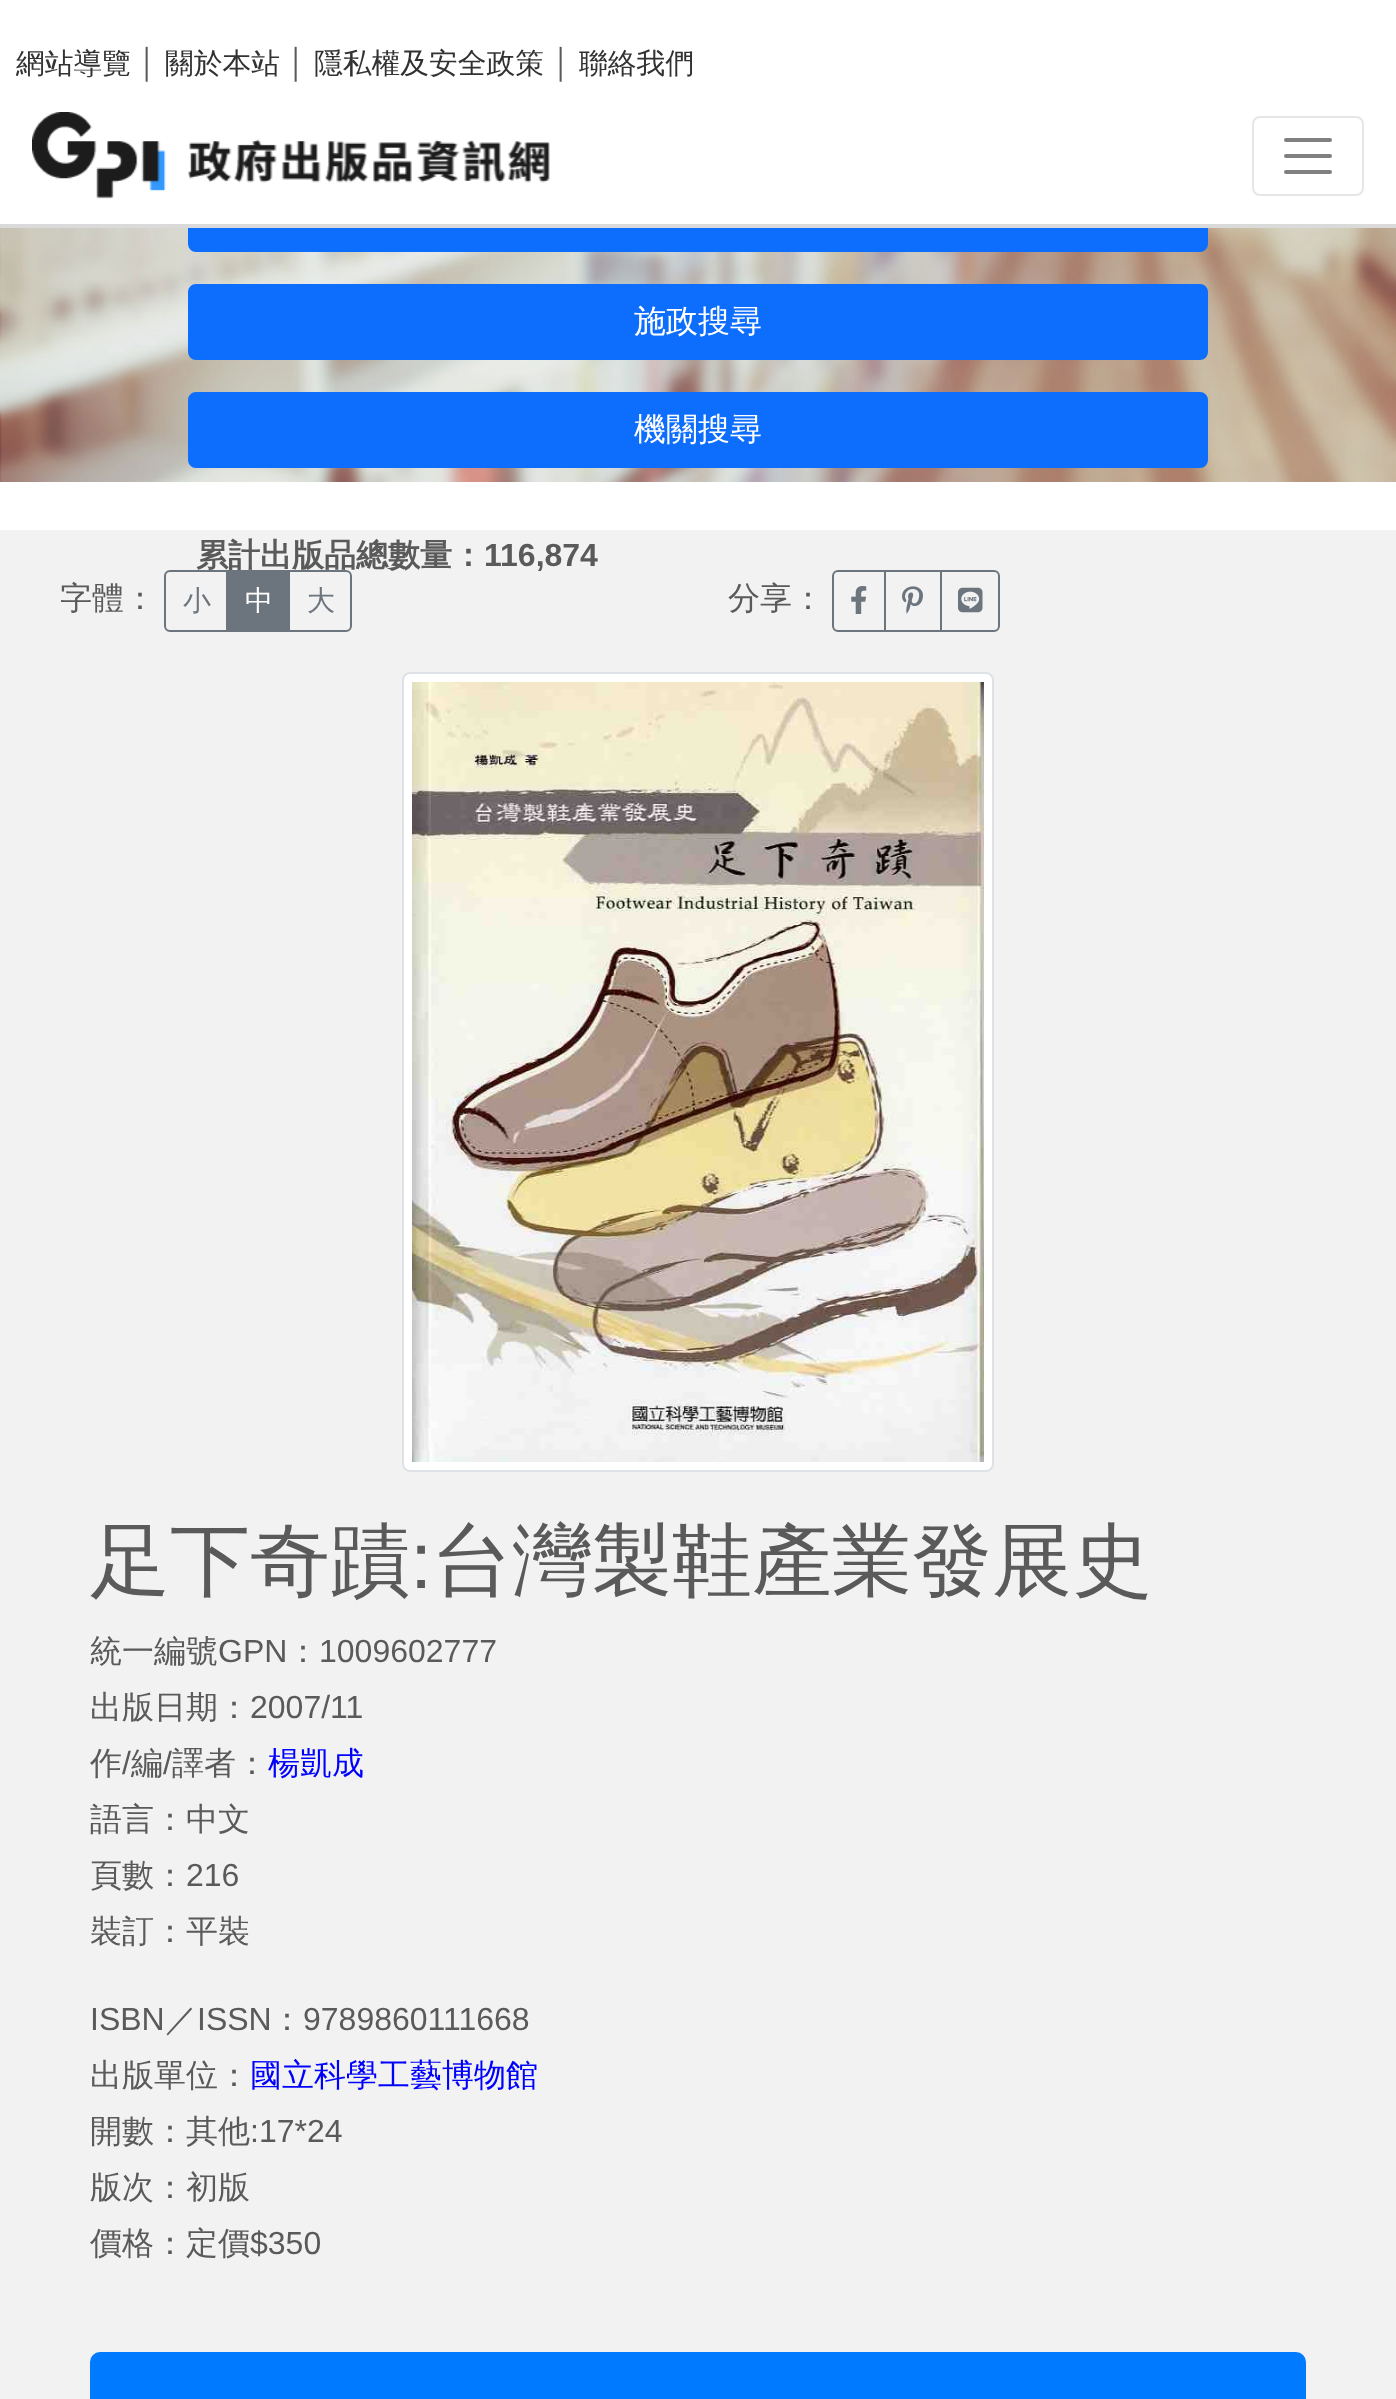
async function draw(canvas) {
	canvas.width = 1396;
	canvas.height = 2399;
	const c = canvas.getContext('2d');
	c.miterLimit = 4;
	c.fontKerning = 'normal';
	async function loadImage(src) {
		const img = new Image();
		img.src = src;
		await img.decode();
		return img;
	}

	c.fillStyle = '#fff';
	c.fillRect(0, 0, 1396, 2399);
	c.drawImage(await loadImage('img2.png'), 0, 228, 1396, 254);
	c.fillStyle = '#0d6efd';
	c.beginPath();
	c.roundRect(189, 177, 1018, 74, 7);
	c.fill();
	c.strokeStyle = '#0d6efd';
	c.lineWidth = 2;
	c.stroke();
	c.fillStyle = '#fff';
	c.fillRect(188, 176, 1020, 48);
	c.fillStyle = '#dadada';
	c.fillRect(0, 224, 1396, 4);
	c.font = '500 28.75px WenQuanYi Zen Hei';
	c.fillStyle = '#323232';
	c.fillText('網站導覽', 16, 73);
	c.font = '28.75px Liberation Sans';
	c.fillStyle = '#5a5a5a';
	c.fillText('│', 139, 73);
	c.font = '500 28.75px WenQuanYi Zen Hei';
	c.fillStyle = '#323232';
	c.fillText('關於本站', 165, 73);
	c.font = '28.75px Liberation Sans';
	c.fillStyle = '#5a5a5a';
	c.fillText('│', 288, 73);
	c.font = '500 28.75px WenQuanYi Zen Hei';
	c.fillStyle = '#323232';
	c.fillText('隱私權及安全政策', 314, 73);
	c.font = '28.75px Liberation Sans';
	c.fillStyle = '#5a5a5a';
	c.fillText('│', 553, 73);
	c.font = '500 28.75px WenQuanYi Zen Hei';
	c.fillStyle = '#323232';
	c.fillText('聯絡我們', 579, 73);
	c.drawImage(await loadImage('img1.png'), 32, 112, 518, 87);
	c.beginPath();
	c.roundRect(1253, 117, 110, 78, 7);
	c.strokeStyle = '#e6e6e6';
	c.stroke();
	c.beginPath();
	c.moveTo(1286, 140);
	c.lineTo(1330, 140);
	c.moveTo(1286, 156);
	c.lineTo(1330, 156);
	c.moveTo(1286, 172);
	c.lineTo(1330, 172);
	c.strokeStyle = '#808080';
	c.lineWidth = 4;
	c.lineCap = 'round';
	c.stroke();
	c.fillStyle = '#0d6efd';
	c.beginPath();
	c.roundRect(189, 285, 1018, 74, 7);
	c.fill();
	c.strokeStyle = '#0d6efd';
	c.lineWidth = 2;
	c.stroke();
	c.font = '500 32px WenQuanYi Zen Hei';
	c.fillStyle = '#fff';
	c.fillText('施政搜尋', 634, 332);
	c.fillStyle = '#0d6efd';
	c.beginPath();
	c.roundRect(189, 393, 1018, 74, 7);
	c.fill();
	c.stroke();
	c.fillStyle = '#fff';
	c.fillText('機關搜尋', 634, 440);
	c.fillStyle = '#f2f2f2';
	c.fillRect(0, 530, 1396, 1869);
	c.font = 'bold 32px WenQuanYi Zen Hei';
	c.fillStyle = '#5a5a5a';
	c.fillText('累計出版品總數量：', 196, 566);
	c.font = 'bold 32px Liberation Sans';
	c.fillText('116,874', 484, 566);
	c.font = '500 32px WenQuanYi Zen Hei';
	c.fillText('字體：', 60, 609);
	c.beginPath();
	c.roundRect(165, 571, 62, 60, [5, 0, 0, 5]);
	c.strokeStyle = '#6c757d';
	c.stroke();
	c.font = '500 28px WenQuanYi Zen Hei';
	c.fillStyle = '#6c757d';
	c.fillText('小', 183, 610);
	c.fillRect(228, 570, 60, 62);
	c.fillStyle = '#fff';
	c.fillText('中', 245, 610);
	c.beginPath();
	c.roundRect(289, 571, 62, 60, [0, 5, 5, 0]);
	c.stroke();
	c.fillStyle = '#6c757d';
	c.fillText('大', 307, 610);
	c.font = '500 32px WenQuanYi Zen Hei';
	c.fillStyle = '#5a5a5a';
	c.fillText('分享：', 728, 609);
	c.beginPath();
	c.roundRect(833, 571, 52, 60, [5, 0, 0, 5]);
	c.stroke();
	c.drawImage(await loadImage('img3.png'), 851, 586, 16, 28);
	c.strokeRect(885, 571, 56, 60);
	c.drawImage(await loadImage('img4.png'), 902, 586, 21, 28);
	c.beginPath();
	c.roundRect(941, 571, 58, 60, [0, 5, 5, 0]);
	c.stroke();
	c.drawImage(await loadImage('img5.png'), 958, 587, 25, 26);
	c.fillStyle = '#fff';
	c.beginPath();
	c.roundRect(403, 673, 590, 798, 7);
	c.fill();
	c.strokeStyle = '#dee2e6';
	c.stroke();
	c.drawImage(await loadImage('img6.png'), 412, 682, 572, 780);
	c.font = '500 80px WenQuanYi Zen Hei';
	c.fillStyle = '#5a5a5a';
	c.fillText('足下奇蹟', 90, 1588);
	c.font = '80px Liberation Sans';
	c.fillText(':', 410, 1588);
	c.font = '500 80px WenQuanYi Zen Hei';
	c.fillText('台灣製鞋產業發展史', 432, 1588);
	c.font = '500 32px WenQuanYi Zen Hei';
	c.fillText('統一編號', 90, 1662);
	c.font = '32px Liberation Sans';
	c.fillText('GPN', 218, 1662);
	c.font = '500 32px WenQuanYi Zen Hei';
	c.fillText('：', 287, 1662);
	c.font = '32px Liberation Sans';
	c.fillText('1009602777', 319, 1662);
	c.font = '500 32px WenQuanYi Zen Hei';
	c.fillText('出版日期：', 90, 1718);
	c.font = '32px Liberation Sans';
	c.fillText('2007/11', 250, 1718);
	c.font = '500 32px WenQuanYi Zen Hei';
	c.fillText('作', 90, 1774);
	c.font = '32px Liberation Sans';
	c.fillText('/', 122, 1774);
	c.font = '500 32px WenQuanYi Zen Hei';
	c.fillText('編', 131, 1774);
	c.font = '32px Liberation Sans';
	c.fillText('/', 163, 1774);
	c.font = '500 32px WenQuanYi Zen Hei';
	c.fillText('譯者：', 172, 1774);
	c.fillStyle = '#00f';
	c.fillText('楊凱成', 268, 1774);
	c.fillStyle = '#5a5a5a';
	c.fillText('語言：中文', 90, 1830);
	c.fillText('頁數：', 90, 1886);
	c.font = '32px Liberation Sans';
	c.fillText('216', 186, 1886);
	c.font = '500 32px WenQuanYi Zen Hei';
	c.fillText('裝訂：平裝', 90, 1942);
	c.font = '32px Liberation Sans';
	c.fillText('ISBN', 90, 2030);
	c.font = '500 32px WenQuanYi Zen Hei';
	c.fillText('／', 165, 2030);
	c.font = '32px Liberation Sans';
	c.fillText('ISSN', 197, 2030);
	c.font = '500 32px WenQuanYi Zen Hei';
	c.fillText('：', 271, 2030);
	c.font = '32px Liberation Sans';
	c.fillText('9789860111668', 303, 2030);
	c.font = '500 32px WenQuanYi Zen Hei';
	c.fillText('出版單位：', 90, 2086);
	c.fillStyle = '#00f';
	c.fillText('國立科學工藝博物館', 250, 2086);
	c.fillStyle = '#5a5a5a';
	c.fillText('開數：其他', 90, 2142);
	c.font = '32px Liberation Sans';
	c.fillText(':17*24', 250, 2142);
	c.font = '500 32px WenQuanYi Zen Hei';
	c.fillText('版次：初版', 90, 2198);
	c.fillText('價格：定價', 90, 2254);
	c.font = '32px Liberation Sans';
	c.fillText('$350', 250, 2254);
	c.fillStyle = '#007bff';
	c.beginPath();
	c.roundRect(91, 2353, 1214, 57, 9);
	c.fill();
	c.strokeStyle = '#007bff';
	c.stroke();
}

draw(document.querySelector('canvas'));
